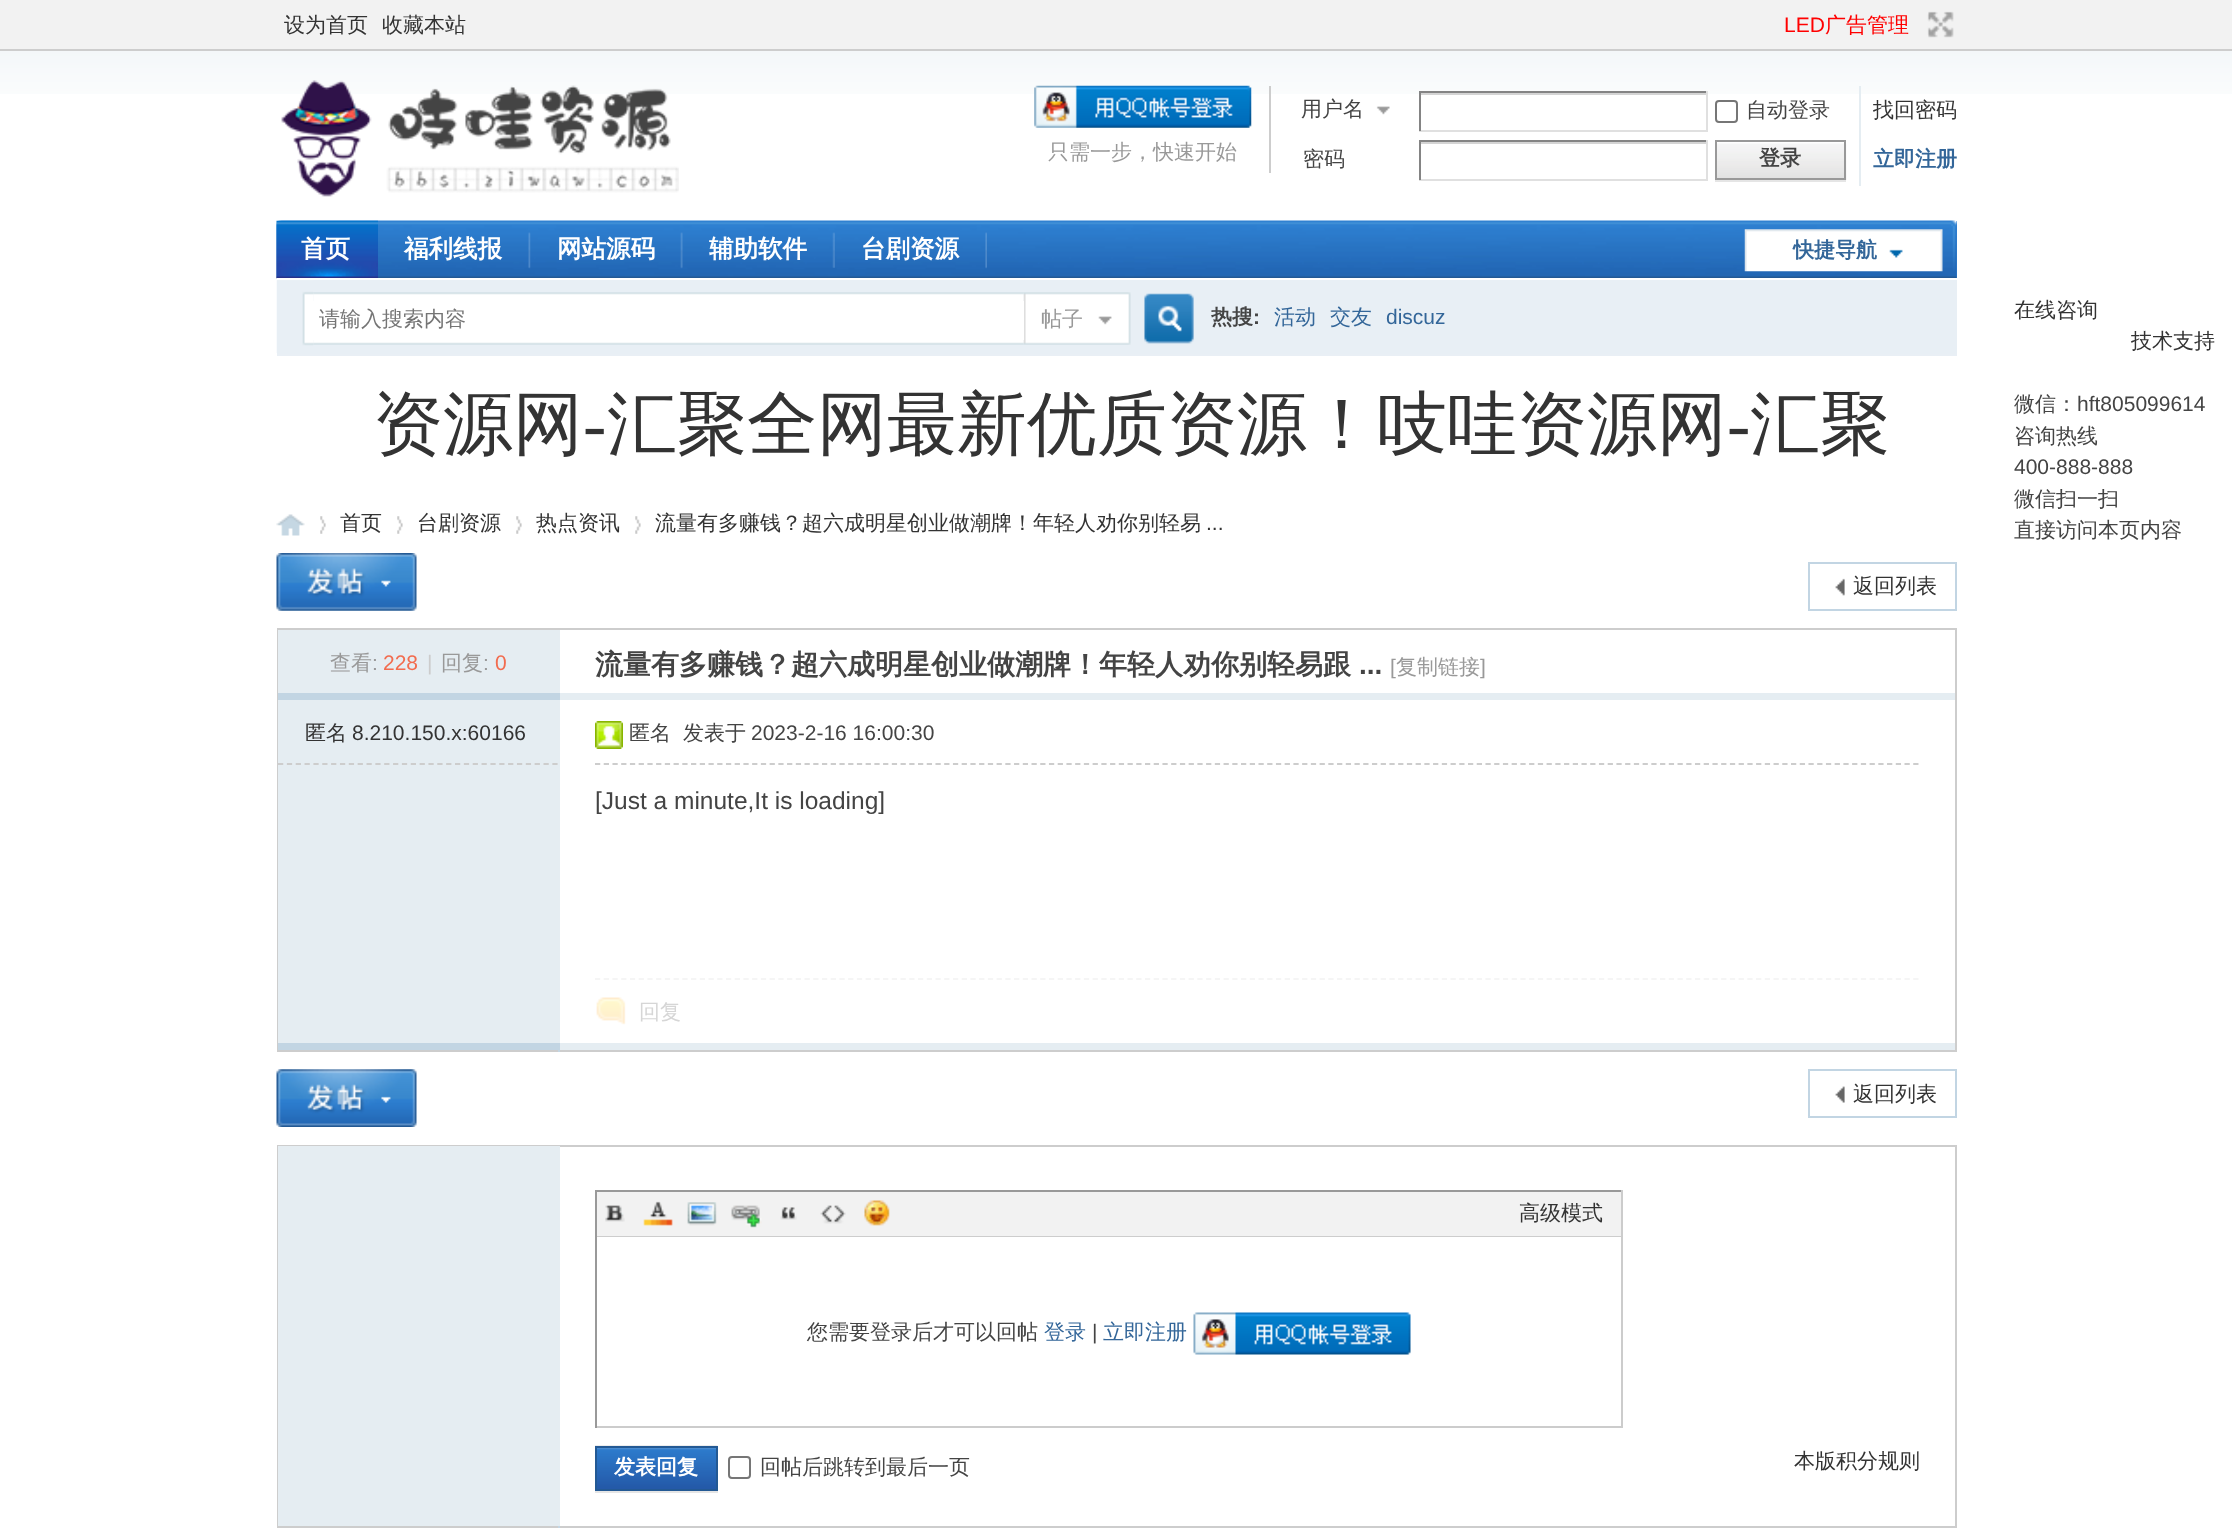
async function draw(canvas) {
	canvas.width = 2232;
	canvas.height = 1535;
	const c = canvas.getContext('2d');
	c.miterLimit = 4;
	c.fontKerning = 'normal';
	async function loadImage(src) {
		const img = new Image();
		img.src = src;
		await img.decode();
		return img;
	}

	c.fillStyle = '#fff';
	c.fillRect(0, 0, 2232, 1535);
	c.drawImage(await loadImage('img1.png'), 0, 51, 2232, 43);
	c.fillStyle = '#f2f2f2';
	c.fillRect(0, 0, 2232, 49);
	c.fillStyle = '#cdcdcd';
	c.fillRect(0, 49, 2232, 2);
	c.font = '500 21px WenQuanYi Zen Hei';
	c.fillStyle = '#333';
	c.fillText('设为首页', 284, 32);
	c.fillText('收藏本站', 382, 32);
	c.font = '21px Liberation Sans';
	c.fillStyle = '#f00';
	c.fillText('LED', 1784, 32);
	c.font = '500 21px WenQuanYi Zen Hei';
	c.fillText('广告管理', 1825, 32);
	c.drawImage(await loadImage('img2.png'), 1927, 11, 27, 27);
	c.drawImage(await loadImage('img3.png'), 281, 80, 398, 117);
	c.fillStyle = '#cdcdcd';
	c.fillRect(1269, 86, 2, 87);
	c.drawImage(await loadImage('img4.png'), 1034, 85, 218, 43);
	c.fillStyle = '#999';
	c.fillText('只需一步，快速开始', 1048, 159);
	c.drawImage(await loadImage('img5.png'), 1376, 106, 14, 9);
	c.fillStyle = '#444';
	c.fillText('用户名', 1301, 116);
	for (const [x, y, w, h, color] of [
		[1419, 93, 289, 2, '#d4d4d4'],
		[1419, 91, 289, 2, '#848484'],
		[1706, 91, 2, 40, '#e0e0e0'],
		[1419, 130, 289, 2, '#e0e0e0'],
		[1419, 91, 2, 40, '#848484'],
	]) {
		c.fillStyle = color;
		c.fillRect(x, y, w, h);
	}
	c.beginPath();
	c.roundRect(1716, 101, 21, 21, 3);
	c.strokeStyle = '#767676';
	c.lineWidth = 2;
	c.stroke();
	c.fillStyle = '#444';
	c.fillText('自动登录', 1746, 117);
	c.fillStyle = '#333';
	c.fillText('找回密码', 1873, 117);
	c.fillStyle = '#444';
	c.fillText('密码', 1303, 166);
	for (const [x, y, w, h, color] of [
		[1419, 142, 289, 2, '#d4d4d4'],
		[1419, 140, 289, 2, '#848484'],
		[1706, 140, 2, 40, '#e0e0e0'],
		[1419, 179, 289, 2, '#e0e0e0'],
		[1419, 140, 2, 40, '#848484'],
		[1859, 86, 2, 100, '#e5edf2'],
		[1715, 180, 131, 2, '#e5e5e5'],
	]) {
		c.fillStyle = color;
		c.fillRect(x, y, w, h);
	}
	c.drawImage(await loadImage('img6.png'), 1717, 141, 130, 39);
	c.strokeStyle = '#999';
	c.strokeRect(1716, 141, 129, 38);
	c.font = 'bold 21px WenQuanYi Zen Hei';
	c.fillStyle = '#444';
	c.fillText('登录', 1759, 165);
	c.fillStyle = '#369';
	c.fillText('立即注册', 1873, 166);
	c.fillStyle = '#2b7acd';
	c.fillRect(1956, 221, 1, 57);
	c.drawImage(await loadImage('img7.png'), 276, 220, 1681, 59);
	c.drawImage(await loadImage('img8.png'), 276, 220, 102, 59);
	c.font = 'bold 24.5px WenQuanYi Zen Hei';
	c.fillStyle = '#fff';
	c.fillText('首页', 301, 257);
	c.drawImage(await loadImage('img9.png'), 528, 232, 3, 37);
	c.fillText('福利线报', 404, 257);
	c.drawImage(await loadImage('img10.png'), 680, 232, 3, 37);
	c.fillText('网站源码', 557, 257);
	c.drawImage(await loadImage('img11.png'), 832, 232, 3, 36);
	c.fillText('辅助软件', 709, 257);
	c.drawImage(await loadImage('img12.png'), 985, 232, 2, 37);
	c.fillText('台剧资源', 861, 257);
	c.drawImage(await loadImage('img13.png'), 1744, 229, 199, 43);
	c.font = 'bold 21px WenQuanYi Zen Hei';
	c.fillStyle = '#369';
	c.fillText('快捷导航', 1793, 257);
	for (const [x, y, w, h, color] of [
		[277, 280, 1680, 74, '#e8eff5'],
		[277, 278, 1680, 1, '#fff'],
		[277, 354, 1680, 2, '#e9eff5'],
	]) {
		c.fillStyle = color;
		c.fillRect(x, y, w, h);
	}
	c.drawImage(await loadImage('img14.png'), 276, 280, 38, 73);
	c.drawImage(await loadImage('img15.png'), 313, 292, 711, 53);
	c.drawImage(await loadImage('img16.png'), 1023, 292, 108, 53);
	c.fillStyle = '#fff';
	c.fillRect(313, 301, 711, 39);
	c.font = '500 21px WenQuanYi Zen Hei';
	c.fillStyle = '#757575';
	c.fillText('请输入搜索内容', 319, 326);
	c.fillStyle = '#999';
	c.fillText('帖子', 1041, 326);
	c.drawImage(await loadImage('img17.png'), 1144, 293, 50, 51);
	c.font = 'bold 21px WenQuanYi Zen Hei';
	c.fillStyle = '#444';
	c.fillText('热搜', 1211, 324);
	c.font = 'bold 21px Liberation Sans';
	c.fillText(':', 1253, 324);
	c.font = '500 21px WenQuanYi Zen Hei';
	c.fillStyle = '#369';
	c.fillText('活动', 1274, 324);
	c.fillText('交友', 1330, 324);
	c.font = '21px Liberation Sans';
	c.fillText('discuz', 1386, 324);
	c.font = '500 70px WenQuanYi Zen Hei';
	c.fillStyle = '#333';
	c.fillText('资源网', 373, 448);
	c.font = '70px Liberation Serif';
	c.fillText('-', 583, 448);
	c.font = '500 70px WenQuanYi Zen Hei';
	c.fillText('汇聚全网最新优质资源！吱哇资源网', 607, 448);
	c.font = '70px Liberation Serif';
	c.fillText('-', 1727, 448);
	c.font = '500 70px WenQuanYi Zen Hei';
	c.fillText('汇聚', 1750, 448);
	c.font = '500 21px WenQuanYi Zen Hei';
	c.fillText('在线咨询', 2014, 317);
	c.fillText('技术支持', 2131, 348);
	c.fillStyle = '#444';
	c.fillText('微信：', 2014, 411);
	c.font = '21px Liberation Sans';
	c.fillText('hft805099614', 2077, 411);
	c.font = '500 21px WenQuanYi Zen Hei';
	c.fillText('咨询热线', 2014, 443);
	c.font = '21px Liberation Sans';
	c.fillText('400-888-888', 2014, 474);
	c.font = '500 21px WenQuanYi Zen Hei';
	c.fillText('微信扫一扫', 2014, 506);
	c.fillText('直接访问本页内容', 2014, 537);
	c.drawImage(await loadImage('img18.png'), 276, 514, 29, 22);
	c.drawImage(await loadImage('img19.png'), 320, 516, 6, 18);
	c.fillStyle = '#333';
	c.fillText('首页', 340, 530);
	c.drawImage(await loadImage('img19.png'), 397, 516, 6, 18);
	c.fillText('台剧资源', 417, 530);
	c.drawImage(await loadImage('img19.png'), 516, 516, 6, 18);
	c.fillText('热点资讯', 536, 530);
	c.drawImage(await loadImage('img19.png'), 635, 516, 6, 18);
	c.fillText('流量有多赚钱？超六成明星创业做潮牌！年轻人劝你别轻易', 655, 530);
	c.font = '21px Liberation Sans';
	c.fillText('...', 1206, 530);
	c.drawImage(await loadImage('img20.png'), 276, 553, 141, 58);
	c.drawImage(await loadImage('img21.png'), 1835, 578, 10, 18);
	c.strokeStyle = '#c2d5e3';
	c.strokeRect(1809, 563, 147, 47);
	c.font = '500 21px WenQuanYi Zen Hei';
	c.fillText('返回列表', 1853, 593);
	c.strokeStyle = '#cdcdcd';
	c.strokeRect(278, 629, 1678, 422);
	c.fillStyle = '#e5edf2';
	c.fillRect(278, 630, 282, 63);
	c.fillStyle = '#999';
	c.fillText('查看', 330, 670);
	c.font = '21px Liberation Sans';
	c.fillText(':', 372, 670);
	c.fillStyle = '#f26c4f';
	c.fillText('228', 383, 670);
	c.fillStyle = '#ccc';
	c.fillText('|', 427, 670);
	c.font = '500 21px WenQuanYi Zen Hei';
	c.fillStyle = '#999';
	c.fillText('回复', 441, 670);
	c.font = '21px Liberation Sans';
	c.fillText(':', 483, 670);
	c.fillStyle = '#f26c4f';
	c.fillText('0', 495, 670);
	c.font = 'bold 28px WenQuanYi Zen Hei';
	c.fillStyle = '#444';
	c.fillText('流量有多赚钱？超六成明星创业做潮牌！年轻人劝你别轻易跟', 595, 674);
	c.font = 'bold 28px Liberation Sans';
	c.fillText('...', 1359, 674);
	c.font = '21px Liberation Sans';
	c.fillStyle = '#999';
	c.fillText('[', 1390, 674);
	c.font = '500 21px WenQuanYi Zen Hei';
	c.fillText('复制链接', 1396, 674);
	c.font = '21px Liberation Sans';
	c.fillText(']', 1480, 674);
	for (const [x, y, w, h, color] of [
		[278, 693, 282, 7, '#c2d5e3'],
		[560, 693, 1395, 7, '#e5edf2'],
		[278, 700, 282, 343, '#e5edf2'],
	]) {
		c.fillStyle = color;
		c.fillRect(x, y, w, h);
	}
	c.beginPath();
	c.moveTo(278, 764);
	c.lineTo(558, 764);
	c.lineWidth = 1.8;
	c.setLineDash([5.25, 3.6]);
	c.stroke();
	c.font = '500 21px WenQuanYi Zen Hei';
	c.fillStyle = '#333';
	c.fillText('匿名', 305, 740);
	c.font = '21px Liberation Sans';
	c.fillText('8.210.150.x:60166', 352, 740);
	c.beginPath();
	c.moveTo(595, 764);
	c.lineTo(1920, 764);
	c.setLineDash([5.25, 3.48]);
	c.stroke();
	c.drawImage(await loadImage('img22.png'), 595, 721, 28, 28);
	c.font = '500 21px WenQuanYi Zen Hei';
	c.fillStyle = '#444';
	c.fillText('匿名', 629, 740);
	c.fillText('发表于', 683, 740);
	c.font = '21px Liberation Sans';
	c.fillText('2023-2-16 16:00:30', 751, 740);
	c.font = '24.5px Liberation Sans';
	c.fillText('[Just a minute,It is loading]', 595, 809);
	c.beginPath();
	c.moveTo(595, 979);
	c.lineTo(1920, 979);
	c.strokeStyle = '#f5f5f5';
	c.stroke();
	c.drawImage(await loadImage('img23.png'), 596, 997, 30, 28);
	c.font = '500 21px WenQuanYi Zen Hei';
	c.fillStyle = '#d6d6d6';
	c.fillText('回复', 639, 1019);
	for (const [x, y, w, h, color] of [
		[558, 1043, 2, 9, '#c2d5e3'],
		[278, 1043, 282, 7, '#c2d5e3'],
		[560, 1043, 1395, 7, '#e5edf2'],
	]) {
		c.fillStyle = color;
		c.fillRect(x, y, w, h);
	}
	c.drawImage(await loadImage('img24.png'), 276, 1069, 141, 58);
	c.drawImage(await loadImage('img25.png'), 1835, 1086, 10, 17);
	c.strokeStyle = '#c2d5e3';
	c.lineWidth = 2;
	c.setLineDash([]);
	c.strokeRect(1809, 1070, 147, 47);
	c.fillStyle = '#333';
	c.fillText('返回列表', 1853, 1101);
	c.strokeStyle = '#cdcdcd';
	c.strokeRect(278, 1146, 1678, 381);
	for (const [x, y, w, h, color] of [
		[558, 1526, 2, 2, '#c2d5e3'],
		[278, 1146, 282, 380, '#e5edf2'],
		[595, 1190, 1027, 2, '#999'],
		[1621, 1190, 2, 238, '#ccc'],
		[595, 1426, 1027, 2, '#ccc'],
		[595, 1190, 2, 238, '#999'],
		[597, 1192, 1024, 44, '#f2f2f2'],
		[597, 1236, 1024, 1, '#cdcdcd'],
	]) {
		c.fillStyle = color;
		c.fillRect(x, y, w, h);
	}
	c.drawImage(await loadImage('img26.png'), 605, 1205, 20, 17);
	c.drawImage(await loadImage('img27.png'), 643, 1201, 30, 25);
	c.drawImage(await loadImage('img28.png'), 687, 1202, 30, 24);
	c.drawImage(await loadImage('img29.png'), 731, 1205, 31, 23);
	c.drawImage(await loadImage('img30.png'), 780, 1207, 17, 13);
	c.drawImage(await loadImage('img31.png'), 820, 1205, 26, 19);
	c.drawImage(await loadImage('img32.png'), 863, 1200, 27, 26);
	c.fillStyle = '#333';
	c.fillText('高级模式', 1519, 1220);
	c.fillStyle = '#444';
	c.fillText('您需要登录后才可以回帖', 807, 1339);
	c.fillStyle = '#369';
	c.fillText('登录', 1044, 1339);
	c.font = '21px Liberation Sans';
	c.fillStyle = '#444';
	c.fillText('|', 1092, 1339);
	c.font = '500 21px WenQuanYi Zen Hei';
	c.fillStyle = '#369';
	c.fillText('立即注册', 1103, 1339);
	c.drawImage(await loadImage('img33.png'), 1193, 1312, 218, 43);
	c.fillStyle = '#e5e5e5';
	c.beginPath();
	c.moveTo(595, 1491);
	c.lineTo(595, 1493);
	c.lineTo(718, 1493);
	c.lineTo(718, 1447);
	c.lineTo(718, 1491);
	c.closePath();
	c.fill();
	c.drawImage(await loadImage('img34.png'), 595, 1445, 123, 44);
	c.strokeStyle = '#235994';
	c.strokeRect(596, 1447, 121, 43);
	c.font = 'bold 21px WenQuanYi Zen Hei';
	c.fillStyle = '#fff';
	c.fillText('发表回复', 614, 1474);
	c.beginPath();
	c.roundRect(729, 1457, 21, 21, 3);
	c.strokeStyle = '#767676';
	c.stroke();
	c.font = '500 21px WenQuanYi Zen Hei';
	c.fillStyle = '#444';
	c.fillText('回帖后跳转到最后一页', 760, 1474);
	c.fillStyle = '#333';
	c.fillText('本版积分规则', 1794, 1468);
}

draw(document.querySelector('canvas'));
